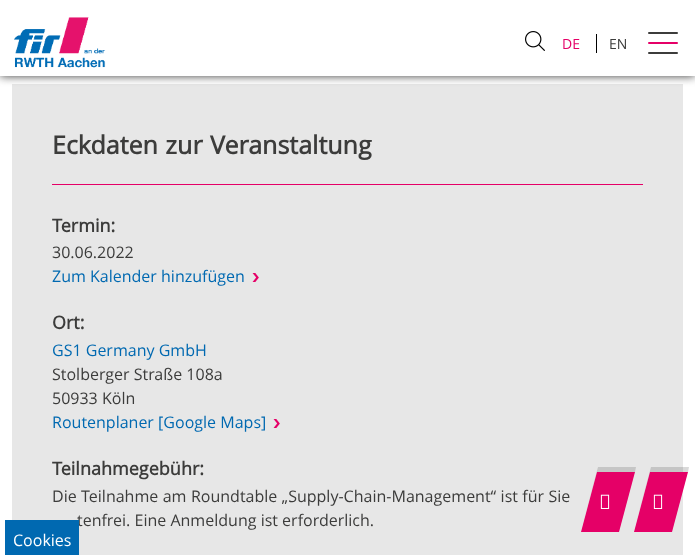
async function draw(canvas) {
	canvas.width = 695;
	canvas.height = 555;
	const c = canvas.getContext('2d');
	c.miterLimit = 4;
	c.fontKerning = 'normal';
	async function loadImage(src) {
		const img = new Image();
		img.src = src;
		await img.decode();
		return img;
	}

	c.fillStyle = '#fff';
	c.fillRect(0, 0, 695, 555);
	c.fillStyle = '#e7e7e7';
	c.fillRect(12, 84, 671, 471);
	c.fillStyle = '#3c3c3b';
	c.filter = 'blur(5px)';
	c.beginPath();
	c.rect(0, 0, 695, 76);
	c.fill();
	c.filter = 'none';
	c.fillStyle = '#fff';
	c.fillRect(0, 0, 695, 76);
	c.drawImage(await loadImage('img1.png'), 14, 17, 92, 51);
	c.drawImage(await loadImage('img2.png'), 525, 31, 20, 20);
	c.font = '14px Open Sans';
	c.fillStyle = '#e50067';
	c.fillText('DE', 562, 49);
	c.fillStyle = '#000';
	c.fillRect(596, 34, 1, 19);
	c.fillStyle = '#3c3c3b';
	c.fillText('EN', 609, 49);
	c.beginPath();
	c.roundRect(648, 32, 30, 2, 1);
	c.fill();
	c.fillStyle = '#e50067';
	c.beginPath();
	c.roundRect(648, 42, 30, 2, 1);
	c.fill();
	c.fillStyle = '#3c3c3b';
	c.beginPath();
	c.roundRect(648, 52, 30, 2, 1);
	c.fill();
	c.fillStyle = '#e50067';
	c.fillRect(52, 184, 591, 1);
	c.wordSpacing = '1px';
	c.font = 'bold 25px Open Sans';
	c.fillStyle = '#3c3c3b';
	c.fillText('Eckdaten zur Veranstaltung', 52, 154);
	c.wordSpacing = '0px';
	c.font = 'bold 18px Open Sans';
	c.fillText('Termin:', 52, 232);
	c.font = '16px Open Sans';
	c.fillText('30.06.2022', 52, 258);
	c.fillStyle = '#0069b1';
	c.fillText('Zum Kalender hinzufügen', 52, 282);
	c.drawImage(await loadImage('img3.png'), 252, 273, 7, 9);
	c.font = 'bold 18px Open Sans';
	c.fillStyle = '#3c3c3b';
	c.fillText('Ort:', 52, 329);
	c.font = '16px Open Sans';
	c.fillStyle = '#0069b1';
	c.fillText('GS1 Germany GmbH', 52, 356);
	c.fillStyle = '#3c3c3b';
	c.fillText('Stolberger Straße 108a', 52, 380);
	c.fillText('50933 Köln', 52, 404);
	c.fillStyle = '#0069b1';
	c.fillText('Routenplaner [Google Maps]', 52, 428);
	c.drawImage(await loadImage('img3.png'), 273, 419, 7, 9);
	c.font = 'bold 18px Open Sans';
	c.fillStyle = '#3c3c3b';
	c.fillText('Teilnahmegebühr:', 52, 475);
	c.wordSpacing = '0.25px';
	c.font = '16px Open Sans';
	c.fillText('Die Teilnahme am Roundtable „Supply-Chain-Management“ ist für Sie', 52, 502);
	c.wordSpacing = '0px';
	c.fillText('tenfrei. Eine Anmeldung ist erforderlich.', 77, 526);
	c.fillStyle = '#c6c6c6';
	c.beginPath();
	c.moveTo(598, 467);
	c.lineTo(582, 527);
	c.lineTo(597, 472);
	c.lineTo(635, 472);
	c.lineTo(636, 467);
	c.closePath();
	c.fill();
	c.fillStyle = '#e50067';
	c.beginPath();
	c.moveTo(597, 472);
	c.lineTo(635, 472);
	c.lineTo(619, 532);
	c.lineTo(581, 532);
	c.closePath();
	c.fill();
	c.drawImage(await loadImage('img4.png'), 600, 494, 10, 15);
	c.fillStyle = '#40404033';
	c.beginPath();
	c.moveTo(651, 467);
	c.lineTo(635, 527);
	c.lineTo(650, 472);
	c.lineTo(688, 472);
	c.lineTo(689, 467);
	c.closePath();
	c.fill();
	c.fillStyle = '#e50067';
	c.beginPath();
	c.moveTo(650, 472);
	c.lineTo(688, 472);
	c.lineTo(672, 532);
	c.lineTo(634, 532);
	c.closePath();
	c.fill();
	c.drawImage(await loadImage('img4.png'), 653, 494, 10, 15);
	c.fillStyle = '#0069b1';
	c.fillRect(5, 520, 74, 35);
	c.fillStyle = '#fff';
	c.fillText('Cookies', 13, 546);
}

draw(document.querySelector('canvas'));
